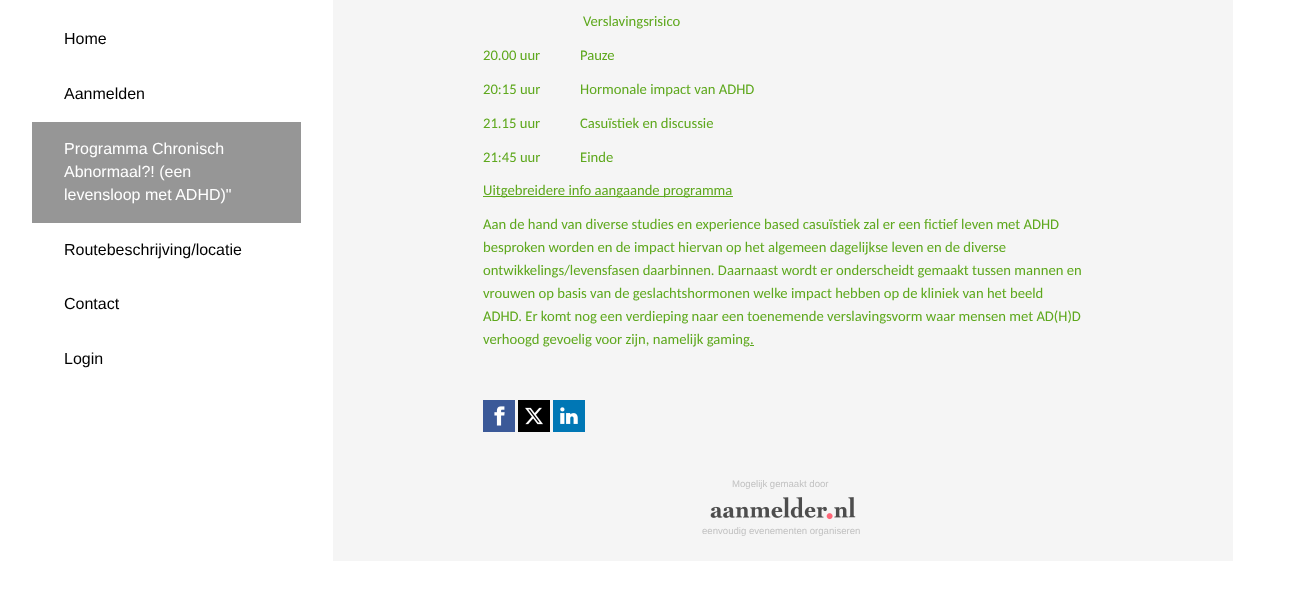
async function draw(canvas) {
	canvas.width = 1290;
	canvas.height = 616;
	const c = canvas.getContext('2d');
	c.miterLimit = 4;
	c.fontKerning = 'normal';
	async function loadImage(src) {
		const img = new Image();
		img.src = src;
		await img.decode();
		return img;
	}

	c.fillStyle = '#fff';
	c.fillRect(0, 0, 1290, 616);
	c.font = '16px Liberation Sans';
	c.fillStyle = '#000';
	c.fillText('Home', 64, 44);
	c.fillText('Aanmelden', 64, 99);
	c.fillStyle = '#969696';
	c.fillRect(32, 122, 269, 101);
	c.fillStyle = '#fff';
	for (const [text, x, y] of [
		['Programma Chronisch', 64, 154],
		['Abnormaal?! (een', 64, 177],
		['levensloop met ADHD)"', 64, 200],
	]) {
		c.fillText(text, x, y);
	}
	c.fillStyle = '#000';
	for (const [text, x, y] of [
		['Routebeschrijving/locatie', 64, 255],
		['Contact', 64, 309],
		['Login', 64, 364],
	]) {
		c.fillText(text, x, y);
	}
	c.fillStyle = '#f5f5f5';
	c.fillRect(333, 0, 900, 561);
	c.font = '14.65px Carlito';
	c.fillStyle = '#5ea81d';
	for (const [text, x, y] of [
		['Verslavingsrisico', 583, 26],
		['20.00 uur            Pauze', 483, 60],
		['20:15 uur            Hormonale impact van ADHD', 483, 94],
		['21.15 uur            Casuïstiek en discussie', 483, 128],
		['21:45 uur            Einde', 483, 162],
	]) {
		c.fillText(text, x, y);
	}
	c.fillRect(483, 196, 250, 1);
	for (const [text, x, y] of [
		['Uitgebreidere info aangaande programma', 483, 195],
		['Aan de hand van diverse studies en experience based casuïstiek zal er een fictief leven met ADHD', 483, 229],
		['besproken worden en de impact hiervan op het algemeen dagelijkse leven en de diverse', 483, 252],
		['ontwikkelings/levensfasen daarbinnen. Daarnaast wordt er onderscheidt gemaakt tussen mannen en', 483, 275],
		['vrouwen op basis van de geslachtshormonen welke impact hebben op de kliniek van het beeld', 483, 298],
		['ADHD. Er komt nog een verdieping naar een toenemende verslavingsvorm waar mensen met AD(H)D', 483, 321],
		['verhoogd gevoelig voor zijn, namelijk gaming.', 483, 344],
	]) {
		c.fillText(text, x, y);
	}
	c.fillRect(750, 345, 4, 1);
	c.fillStyle = '#3b5998';
	c.fillRect(483, 400, 32, 32);
	c.drawImage(await loadImage('img1.png'), 494, 406, 11, 20);
	c.fillStyle = '#000';
	c.fillRect(518, 400, 32, 32);
	c.drawImage(await loadImage('img2.png'), 525, 407, 18, 18);
	c.fillStyle = '#0077b5';
	c.fillRect(553, 400, 32, 32);
	c.drawImage(await loadImage('img3.png'), 560, 407, 18, 17);
	c.font = '9.6px Liberation Sans';
	c.fillStyle = '#c2c2c2';
	c.fillText('Mogelijk gemaakt door', 732, 487);
	c.drawImage(await loadImage('img4.png'), 710, 497, 146, 23);
	c.fillText('eenvoudig evenementen organiseren', 702, 534);
}

draw(document.querySelector('canvas'));
